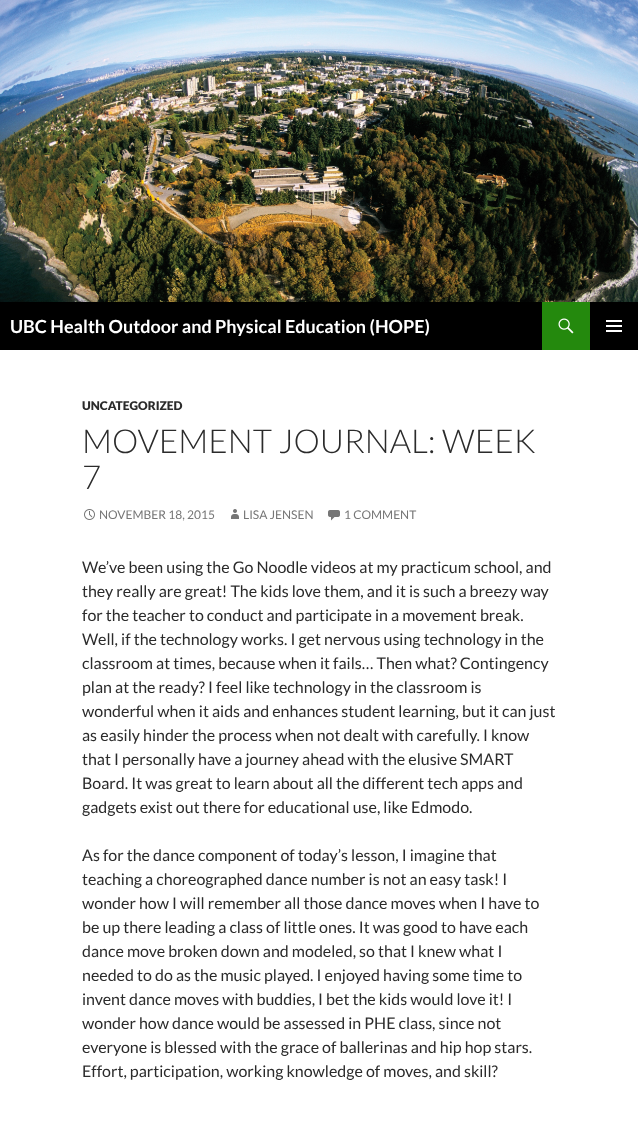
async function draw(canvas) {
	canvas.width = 638;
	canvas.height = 1148;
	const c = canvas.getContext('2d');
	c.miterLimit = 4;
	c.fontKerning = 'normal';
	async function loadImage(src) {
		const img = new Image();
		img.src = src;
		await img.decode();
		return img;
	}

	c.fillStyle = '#fff';
	c.fillRect(0, 0, 638, 1148);
	c.drawImage(await loadImage('img1.png'), 0, 0, 638, 302);
	c.fillStyle = '#000';
	c.fillRect(0, 302, 638, 48);
	c.font = 'bold 18px Lato';
	c.fillStyle = '#fff';
	c.fillText('UBC Health Outdoor and Physical Education (HOPE)', 10, 333);
	c.fillStyle = '#24890d';
	c.fillRect(542, 302, 48, 48);
	c.drawImage(await loadImage('img2.png'), 558, 318, 16, 16);
	c.drawImage(await loadImage('img3.png'), 606, 320, 16, 12);
	c.font = '900 12px Lato';
	c.fillStyle = '#2b2b2b';
	c.fillText('UNCATEGORIZED', 82, 410);
	c.font = '300 33px Lato';
	c.fillText('MOVEMENT JOURNAL: WEEK', 82, 453);
	c.fillText('7', 82, 489);
	c.drawImage(await loadImage('img4.png'), 84, 509, 11, 11);
	c.font = '12px Lato';
	c.fillStyle = '#767676';
	c.fillText('NOVEMBER 18, 2015', 99, 519);
	c.drawImage(await loadImage('img5.png'), 231, 509, 8, 10);
	c.fillText('LISA JENSEN', 243, 519);
	c.drawImage(await loadImage('img6.png'), 328, 510, 12, 11);
	c.fillText('1 COMMENT', 344, 519);
	c.font = '16px Lato';
	c.fillStyle = '#2b2b2b';
	for (const [text, x, y] of [
		['We’ve been using the Go Noodle videos at my practicum school, and', 82, 573],
		['they really are great! The kids love them, and it is such a breezy way', 82, 597],
		['for the teacher to conduct and participate in a movement break.', 82, 621],
		['Well, if the technology works. I get nervous using technology in the', 82, 645],
		['classroom at times, because when it fails… Then what? Contingency', 82, 669],
		['plan at the ready? I feel like technology in the classroom is', 82, 693],
		['wonderful when it aids and enhances student learning, but it can just', 82, 717],
		['as easily hinder the process when not dealt with carefully. I know', 82, 741],
		['that I personally have a journey ahead with the elusive SMART', 82, 765],
		['Board. It was great to learn about all the different tech apps and', 82, 789],
		['gadgets exist out there for educational use, like Edmodo.', 82, 813],
		['As for the dance component of today’s lesson, I imagine that', 82, 861],
		['teaching a choreographed dance number is not an easy task! I', 82, 885],
		['wonder how I will remember all those dance moves when I have to', 82, 909],
		['be up there leading a class of little ones. It was good to have each', 82, 933],
		['dance move broken down and modeled, so that I knew what I', 82, 957],
		['needed to do as the music played. I enjoyed having some time to', 82, 981],
		['invent dance moves with buddies, I bet the kids would love it! I', 82, 1005],
		['wonder how dance would be assessed in PHE class, since not', 82, 1029],
		['everyone is blessed with the grace of ballerinas and hip hop stars.', 82, 1053],
		['Effort, participation, working knowledge of moves, and skill?', 82, 1077],
	]) {
		c.fillText(text, x, y);
	}
}

draw(document.querySelector('canvas'));
